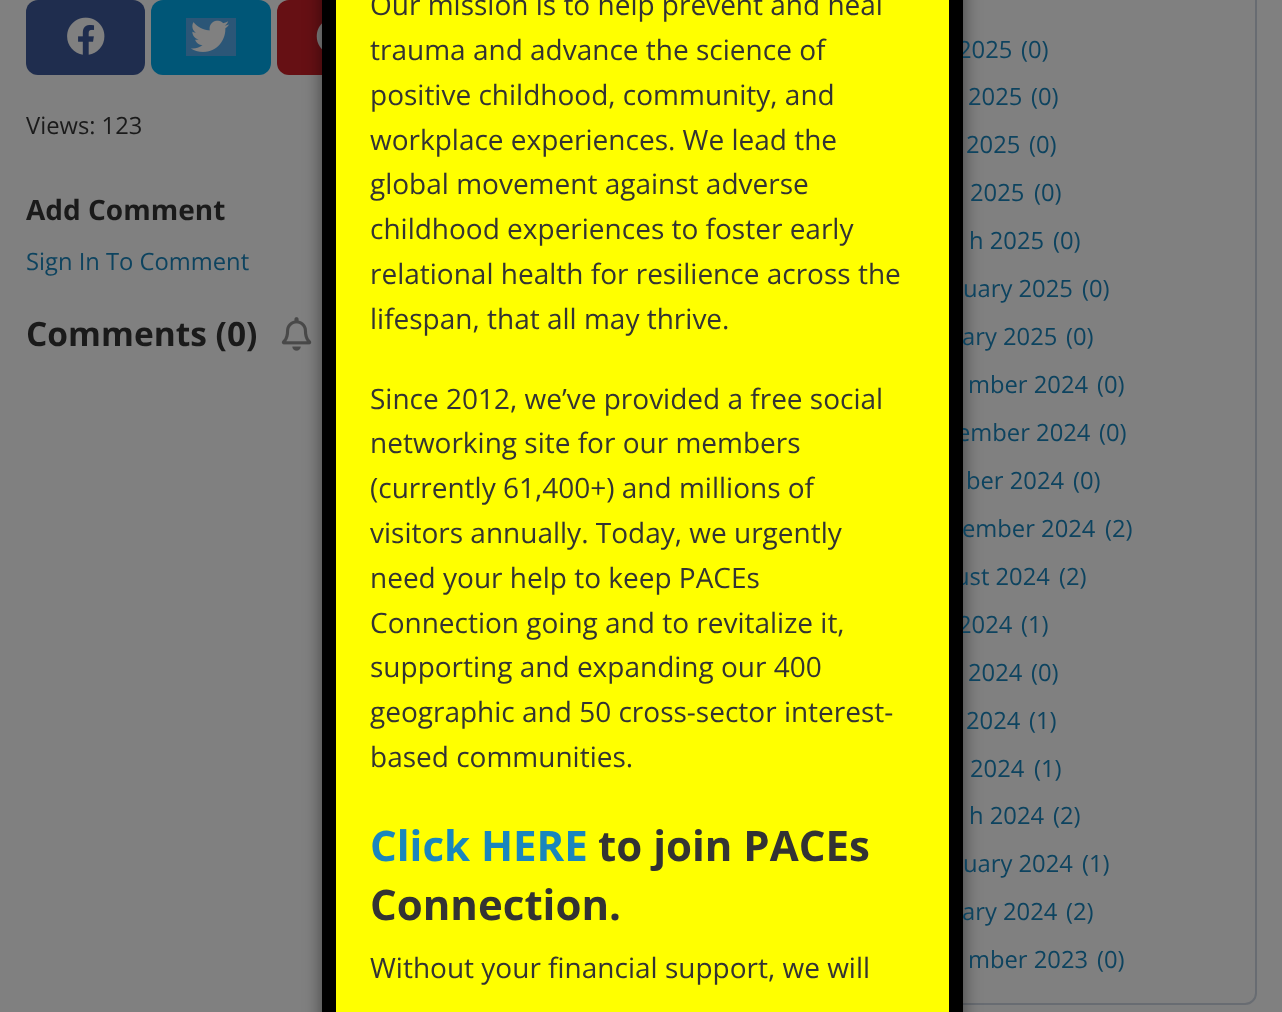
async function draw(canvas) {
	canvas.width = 1282;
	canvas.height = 1012;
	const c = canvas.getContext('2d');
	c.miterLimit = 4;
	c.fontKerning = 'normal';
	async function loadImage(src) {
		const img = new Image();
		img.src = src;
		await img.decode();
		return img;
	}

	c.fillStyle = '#808080';
	c.fillRect(0, 0, 1282, 1012);
	c.fillStyle = '#661014';
	c.beginPath();
	c.roundRect(277, 0, 119, 75, 12);
	c.fill();
	c.drawImage(await loadImage('img3.png'), 316, 23, 6, 27);
	c.drawImage(await loadImage('img4.png'), 281, 317, 31, 34);
	c.beginPath();
	c.roundRect(883, -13, 373, 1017, 11);
	c.strokeStyle = '#686c72';
	c.lineWidth = 2;
	c.stroke();
	c.fillStyle = '#00000080';
	c.filter = 'blur(9px)';
	c.beginPath();
	c.roundRect(322, -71, 641, 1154, 44);
	c.fill();
	c.filter = 'none';
	c.font = '23.75px Open Sans';
	c.fillStyle = '#0d435f';
	for (const [text, x, y] of [
		['2025', 958, 58],
		['ary 2025', 962, 345],
		['ember 2024', 957, 441],
		['ust 2024', 955, 585],
		['2024', 958, 633],
		['ary 2024', 962, 920],
	]) {
		c.fillText(text, x, y);
	}
	c.fillStyle = '#ff0';
	c.beginPath();
	c.rect(329, -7, 627, 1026);
	c.fill();
	c.strokeStyle = '#000';
	c.lineWidth = 14;
	c.stroke();
	c.font = '28px Open Sans';
	c.fillStyle = '#333';
	for (const [text, x, y] of [
		['Our mission is to help prevent and heal', 370, 15],
		['trauma and advance the science of', 370, 60],
		['positive childhood, community, and', 370, 105],
		['workplace experiences. We lead the', 370, 150],
		['global movement against adverse', 370, 194],
		['childhood experiences to foster early', 370, 239],
		['relational health for resilience across the', 370, 284],
		['lifespan, that all may thrive.', 370, 329],
		['Since 2012, we’ve provided a free social', 370, 409],
		['networking site for our members', 370, 453],
		['(currently 61,400+) and millions of', 370, 498],
		['visitors annually. Today, we urgently', 370, 543],
		['need your help to keep PACEs', 370, 588],
		['Connection going and to revitalize it,', 370, 633],
		['supporting and expanding our 400', 370, 677],
		['geographic and 50 cross-sector interest-', 370, 722],
		['based communities.', 370, 767],
	]) {
		c.fillText(text, x, y);
	}
	c.font = 'bold 42px Open Sans';
	c.fillStyle = '#1986bd';
	c.fillText('Click HERE', 370, 861);
	c.fillStyle = '#333';
	c.fillText('to join PACEs', 598, 861);
	c.fillText('Connection.', 370, 920);
	c.font = '28px Open Sans';
	c.fillText('Without your financial support, we will', 370, 978);
	c.fillStyle = '#1f2d4e';
	c.beginPath();
	c.roundRect(26, 0, 119, 75, 12);
	c.fill();
	c.drawImage(await loadImage('img1.png'), 67, 17, 38, 38);
	c.fillStyle = '#005677';
	c.beginPath();
	c.roundRect(151, 0, 120, 75, 12);
	c.fill();
	c.fillStyle = '#2b5677';
	c.fillRect(186, 18, 50, 38);
	c.drawImage(await loadImage('img2.png'), 191, 20, 39, 32);
	c.font = '23.75px Open Sans';
	c.fillStyle = '#1a1a1a';
	c.fillText('Views: 123', 26, 134);
	c.font = 'bold 28px Open Sans';
	c.fillText('Add Comment', 26, 220);
	c.font = '23.75px Open Sans';
	c.fillStyle = '#0d435f';
	c.fillText('Sign In To Comment', 26, 270);
	c.font = 'bold 33.5px Open Sans';
	c.fillStyle = '#1a1a1a';
	c.fillText('Comments (0)', 26, 346);
	c.font = '23.75px Open Sans';
	c.fillStyle = '#0d435f';
	for (const [text, x, y] of [
		['(0)', 1021, 58],
		['2025', 968, 105],
		['(0)', 1031, 105],
		['2025', 966, 153],
		['(0)', 1029, 153],
		['2025', 970, 201],
		['(0)', 1034, 201],
		['h 2025', 969, 249],
		['(0)', 1053, 249],
		['uary 2025', 963, 297],
		['(0)', 1082, 297],
		['(0)', 1066, 345],
		['mber 2024', 968, 393],
		['(0)', 1097, 393],
		['(0)', 1099, 441],
		['ber 2024', 966, 489],
		['(0)', 1073, 489],
		['ember 2024', 962, 537],
		['(2)', 1105, 537],
		['(2)', 1059, 585],
		['(1)', 1021, 633],
		['2024', 968, 681],
		['(0)', 1031, 681],
		['2024', 966, 729],
		['(1)', 1029, 729],
		['2024', 970, 777],
		['(1)', 1034, 777],
		['h 2024', 969, 824],
		['(2)', 1053, 824],
		['uary 2024', 963, 872],
		['(1)', 1082, 872],
		['(2)', 1066, 920],
		['mber 2023', 968, 968],
		['(0)', 1097, 968],
	]) {
		c.fillText(text, x, y);
	}
}

draw(document.querySelector('canvas'));
